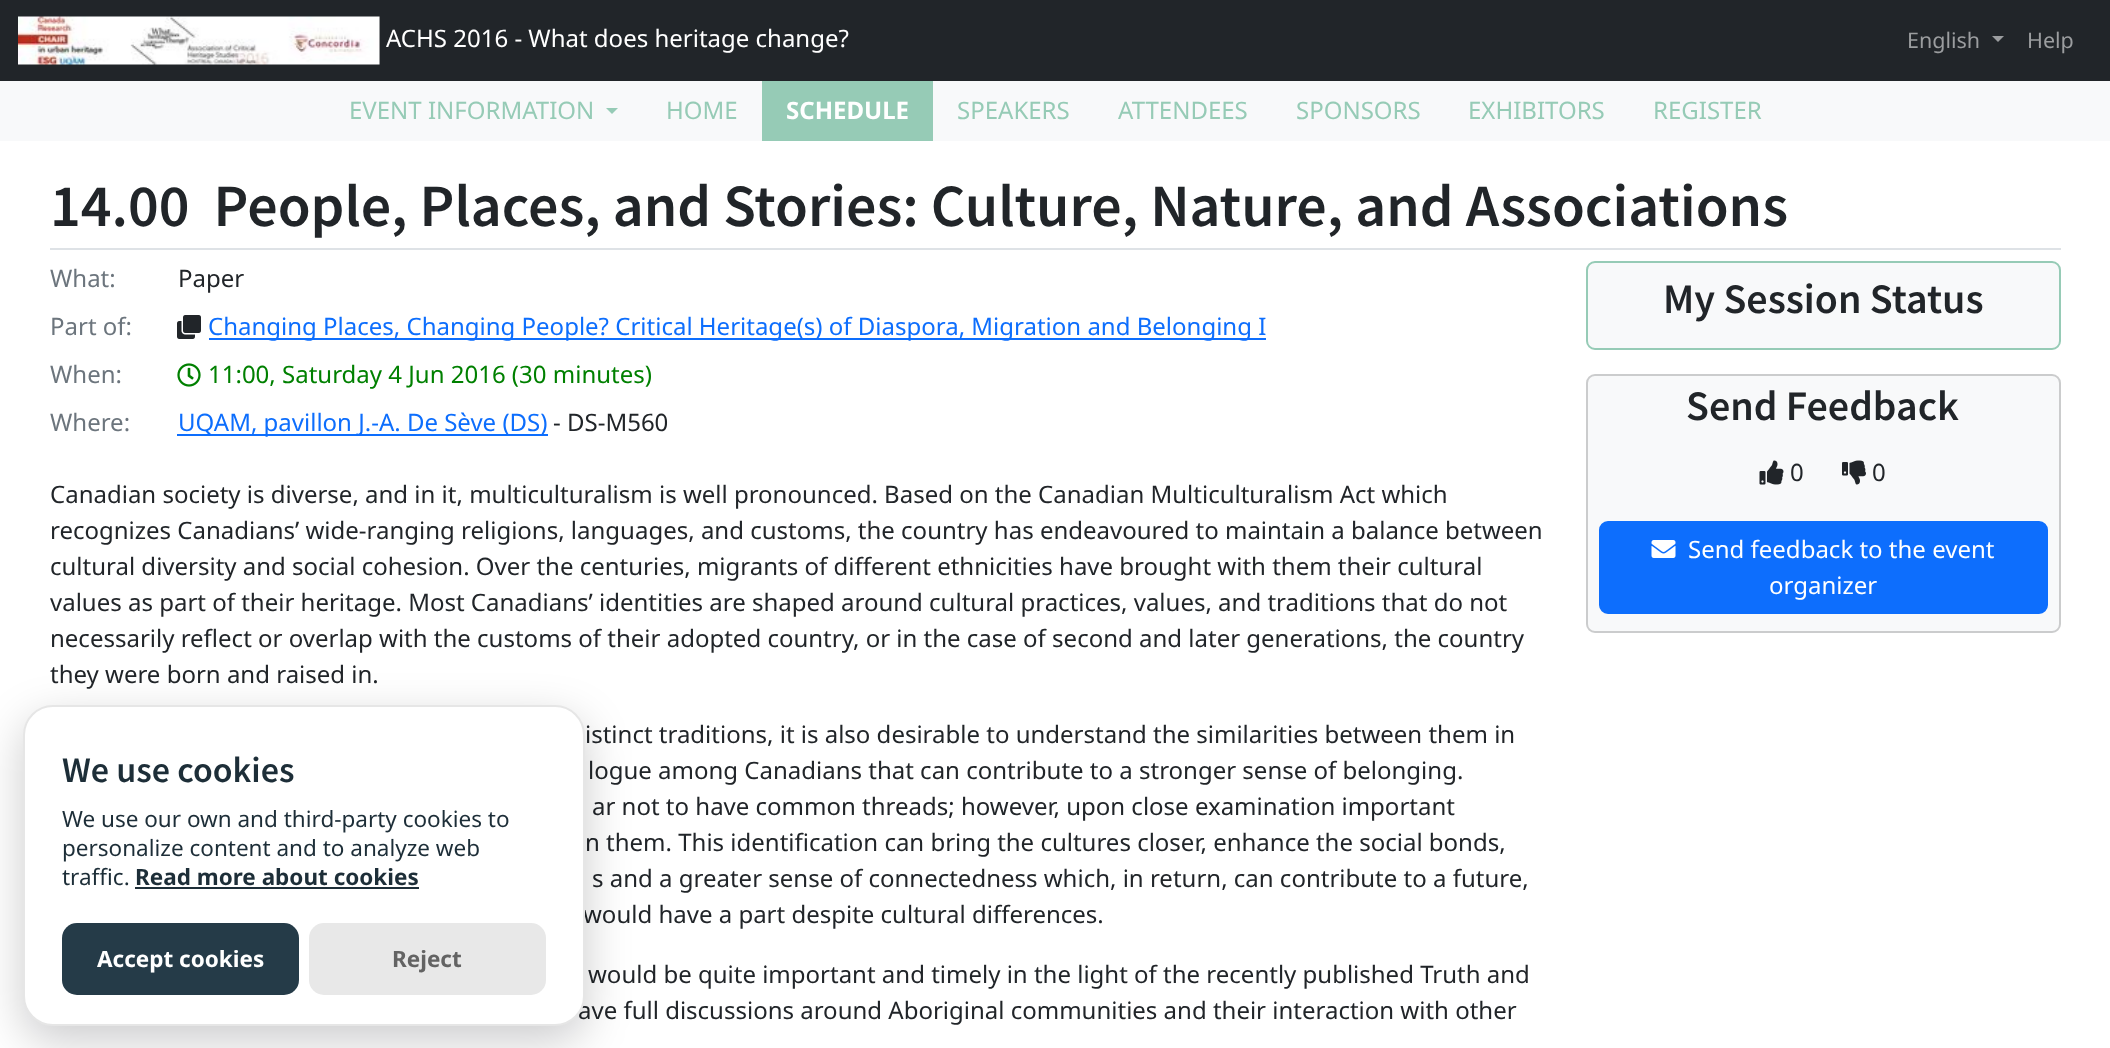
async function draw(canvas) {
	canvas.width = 2110;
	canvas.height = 1048;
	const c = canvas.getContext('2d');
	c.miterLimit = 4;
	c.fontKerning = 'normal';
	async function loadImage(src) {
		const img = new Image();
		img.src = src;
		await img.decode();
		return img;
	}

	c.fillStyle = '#fff';
	c.fillRect(0, 0, 2110, 1048);
	c.fillStyle = '#212529';
	c.fillRect(0, 0, 2110, 81);
	c.drawImage(await loadImage('img1.png'), 18, 16, 362, 49);
	c.font = '24px Noto Sans';
	c.fillStyle = '#fff';
	c.fillText('ACHS 2016 - What does heritage change?', 386, 47);
	c.font = '21.5px Noto Sans';
	c.fillStyle = '#9b9d9f';
	c.fillText('English', 1907, 48);
	c.beginPath();
	c.moveTo(1992, 36);
	c.lineTo(2004, 36);
	c.lineTo(1998, 42);
	c.closePath();
	c.fill();
	c.fillText('Help', 2027, 48);
	c.fillStyle = '#f8f9fa';
	c.fillRect(0, 81, 2110, 60);
	c.font = '24px Noto Sans';
	c.fillStyle = '#96cbb6';
	c.fillText('EVENT INFORMATION', 349, 119);
	c.beginPath();
	c.moveTo(606, 108);
	c.lineTo(618, 108);
	c.lineTo(612, 114);
	c.closePath();
	c.fill();
	c.fillText('HOME', 666, 119);
	c.fillRect(762, 81, 171, 60);
	c.font = 'bold 24px Noto Sans';
	c.fillStyle = '#fff';
	c.fillText('SCHEDULE', 786, 119);
	c.font = '24px Noto Sans';
	c.fillStyle = '#96cbb6';
	for (const [text, x, y] of [
		['SPEAKERS', 957, 119],
		['ATTENDEES', 1118, 119],
		['SPONSORS', 1296, 119],
		['EXHIBITORS', 1468, 119],
		['REGISTER', 1653, 119],
	]) {
		c.fillText(text, x, y);
	}
	c.fillStyle = '#dee2e6';
	c.fillRect(50, 248, 2011, 2);
	c.font = '600 60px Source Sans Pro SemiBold';
	c.fillStyle = '#212529';
	c.fillText('14.00  People, Places, and Stories: Culture, Nature, and Associations', 50, 226);
	c.font = '24px Noto Sans';
	c.fillStyle = '#6c757d';
	c.fillText('What:', 50, 287);
	c.fillStyle = '#212529';
	c.fillText('Paper', 178, 287);
	c.fillStyle = '#6c757d';
	c.fillText('Part of:', 50, 335);
	c.drawImage(await loadImage('img2.png'), 177, 315, 24, 24);
	c.fillStyle = '#0d6efd';
	c.fillRect(209, 338, 1057, 2);
	c.fillText('Changing Places, Changing People? Critical Heritage(s) of Diaspora, Migration and Belonging I', 208, 335);
	c.fillStyle = '#6c757d';
	c.fillText('When:', 50, 383);
	c.drawImage(await loadImage('img3.png'), 177, 363, 24, 24);
	c.fillStyle = '#008000';
	c.fillText('11:00, Saturday 4 Jun 2016 (30 minutes)', 208, 383);
	c.fillStyle = '#6c757d';
	c.fillText('Where:', 50, 431);
	c.fillStyle = '#0d6efd';
	c.fillRect(177, 434, 371, 2);
	c.fillText('UQAM, pavillon J.-A. De Sève (DS)', 178, 431);
	c.fillStyle = '#212529';
	for (const [text, x, y] of [
		['- DS-M560', 553, 431],
		['Canadian society is diverse, and in it, multiculturalism is well pronounced. Based on the Canadian Multiculturalism Act which', 50, 503],
		['recognizes Canadians’ wide-ranging religions, languages, and customs, the country has endeavoured to maintain a balance between', 50, 539],
		['cultural diversity and social cohesion. Over the centuries, migrants of different ethnicities have brought with them their cultural', 50, 575],
		['values as part of their heritage. Most Canadians’ identities are shaped around cultural practices, values, and traditions that do not', 50, 611],
		['necessarily reflect or overlap with the customs of their adopted country, or in the case of second and later generations, the country', 50, 647],
		['they were born and raised in.', 50, 683],
		['istinct traditions, it is also desirable to understand the similarities between them in', 585, 743],
		['logue among Canadians that can contribute to a stronger sense of belonging.', 588, 779],
		['ar not to have common threads; however, upon close examination important', 592, 815],
		['n them. This identification can bring the cultures closer, enhance the social bonds,', 585, 851],
		['s and a greater sense of connectedness which, in return, can contribute to a future,', 592, 887],
		['would have a part despite cultural differences.', 583, 923],
		['would be quite important and timely in the light of the recently published Truth and', 588, 983],
		['ave full discussions around Aboriginal communities and their interaction with other', 578, 1019],
	]) {
		c.fillText(text, x, y);
	}
	c.fillStyle = '#f8f9fa';
	c.beginPath();
	c.roundRect(1587, 262, 473, 87, 8);
	c.fill();
	c.strokeStyle = '#96cbb6';
	c.lineWidth = 2;
	c.stroke();
	c.font = '600 42px Source Sans Pro SemiBold';
	c.fillStyle = '#212529';
	c.fillText('My Session Status', 1663, 313);
	c.fillStyle = '#f8f9fa';
	c.beginPath();
	c.roundRect(1586, 374, 475, 259, 9);
	c.fill();
	c.beginPath();
	c.roundRect(1587, 375, 473, 257, 8);
	c.strokeStyle = '#0000002e';
	c.stroke();
	c.fillStyle = '#212529';
	c.fillText('Send Feedback', 1686, 420);
	c.drawImage(await loadImage('img4.png'), 1759, 460, 25, 25);
	c.font = '24px Noto Sans';
	c.fillText('0', 1790, 481);
	c.drawImage(await loadImage('img5.png'), 1842, 460, 24, 25);
	c.fillText('0', 1872, 481);
	c.fillStyle = '#0d6efd';
	c.beginPath();
	c.roundRect(1600, 522, 447, 91, 8);
	c.fill();
	c.strokeStyle = '#0d6efd';
	c.stroke();
	c.drawImage(await loadImage('img6.png'), 1651, 540, 25, 18);
	c.fillStyle = '#fff';
	c.fillText('Send feedback to the event', 1688, 558);
	c.fillText('organizer', 1769, 594);
	c.fillStyle = '#02020333';
	c.filter = 'blur(22.5px)';
	c.beginPath();
	c.roundRect(23, 720, 562, 321, 30);
	c.fill();
	c.filter = 'none';
	c.fillStyle = '#fff';
	c.beginPath();
	c.roundRect(24, 706, 560, 319, 29);
	c.fill();
	c.strokeStyle = '#e6e6e6';
	c.stroke();
	c.font = '600 36px Source Sans Pro SemiBold';
	c.fillStyle = '#1d2e38';
	c.fillText('We use cookies', 62, 782);
	c.font = '22.5px Noto Sans';
	for (const [text, x, y] of [
		['We use our own and third-party cookies to', 62, 827],
		['personalize content and to analyze web', 62, 856],
		['traffic.', 62, 885],
	]) {
		c.fillText(text, x, y);
	}
	c.font = 'bold 22.5px Noto Sans';
	c.fillText('Read more about cookies', 135, 885);
	c.fillRect(135, 887, 284, 2);
	c.fillStyle = '#253b48';
	c.beginPath();
	c.roundRect(62, 923, 237, 72, 15);
	c.fill();
	c.fillStyle = '#fff';
	c.fillText('Accept cookies', 97, 967);
	c.fillStyle = '#e8e8e8';
	c.beginPath();
	c.roundRect(309, 923, 237, 72, 15);
	c.fill();
	c.fillStyle = '#636363';
	c.fillText('Reject', 392, 967);
}

draw(document.querySelector('canvas'));
